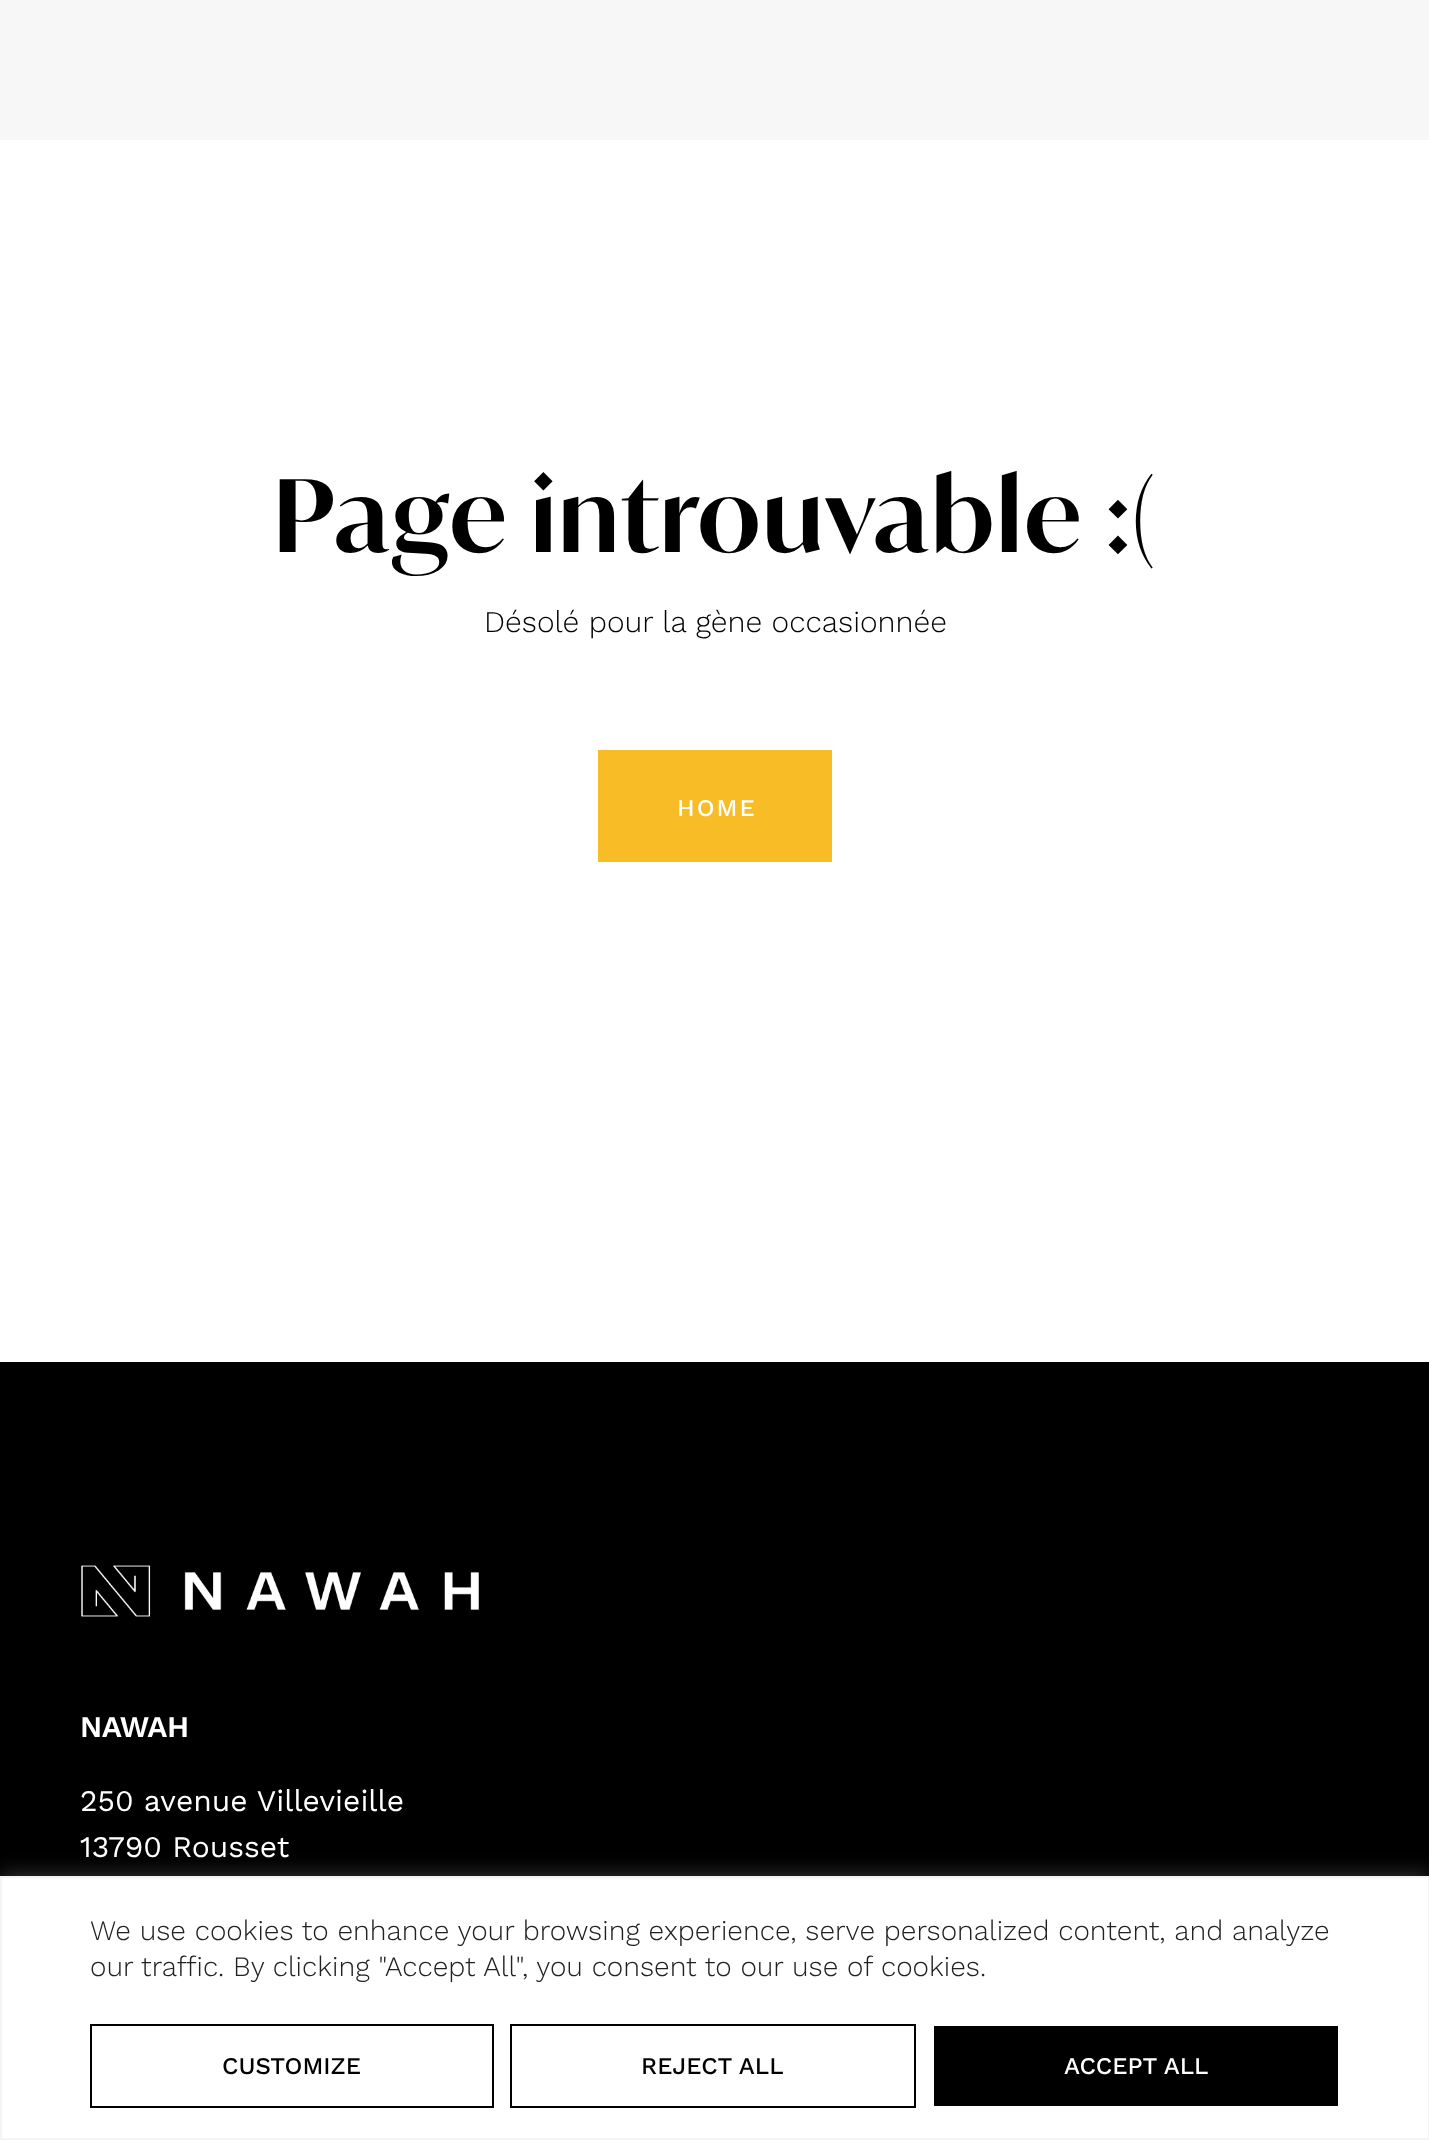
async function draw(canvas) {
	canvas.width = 1429;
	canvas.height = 2140;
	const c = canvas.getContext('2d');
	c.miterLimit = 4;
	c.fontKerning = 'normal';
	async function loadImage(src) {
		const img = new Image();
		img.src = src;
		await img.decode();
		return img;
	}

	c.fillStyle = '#fff';
	c.fillRect(0, 0, 1429, 2140);
	c.fillStyle = '#f7f7f7';
	c.fillRect(0, 0, 1429, 140);
	c.letterSpacing = '2px';
	c.font = '600 100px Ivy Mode';
	c.fillStyle = '#000';
	c.fillText('Page introuvable :(', 273, 552);
	c.letterSpacing = '0px';
	c.font = '300 30px Work Sans';
	c.fillText('Désolé pour la gène occasionnée', 484, 632);
	c.fillStyle = '#f8bc26';
	c.fillRect(598, 750, 234, 112);
	c.letterSpacing = '2px';
	c.font = '500 24px Work Sans';
	c.fillStyle = '#fff';
	c.fillText('HOME', 677, 816);
	c.fillStyle = '#000';
	c.fillRect(0, 1362, 1429, 514);
	c.drawImage(await loadImage('img1.png'), 81, 1565, 398, 52);
	c.letterSpacing = '-0.5px';
	c.font = '600 30px Work Sans';
	c.fillStyle = '#fff';
	c.fillText('NAWAH', 80, 1737);
	c.letterSpacing = '0px';
	c.font = '30px Work Sans';
	c.fillText('250 avenue Villevieille', 80, 1811);
	c.fillText('13790 Rousset', 80, 1857);
	c.fillStyle = '#acabab4d';
	c.filter = 'blur(10px)';
	c.beginPath();
	c.rect(0, 1874, 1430, 264);
	c.fill();
	c.filter = 'none';
	c.fillStyle = '#fff';
	c.beginPath();
	c.rect(1, 1877, 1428, 262);
	c.fill();
	c.strokeStyle = '#f4f4f4';
	c.lineWidth = 2;
	c.stroke();
	c.font = '300 28px Work Sans';
	c.fillStyle = '#212121';
	c.fillText('We use cookies to enhance your browsing experience, serve personalized content, and analyze', 90, 1940);
	c.fillText('our traffic. By clicking "Accept All", you consent to our use of cookies.', 90, 1976);
	c.strokeStyle = '#000';
	c.strokeRect(91, 2025, 402, 82);
	c.font = '500 24px Work Sans';
	c.fillStyle = '#000';
	c.fillText('CUSTOMIZE', 222, 2074);
	c.strokeRect(511, 2025, 404, 82);
	c.fillText('REJECT ALL', 641, 2074);
	c.fillRect(934, 2026, 404, 80);
	c.fillStyle = '#fff';
	c.fillText('ACCEPT ALL', 1064, 2074);
}

draw(document.querySelector('canvas'));
